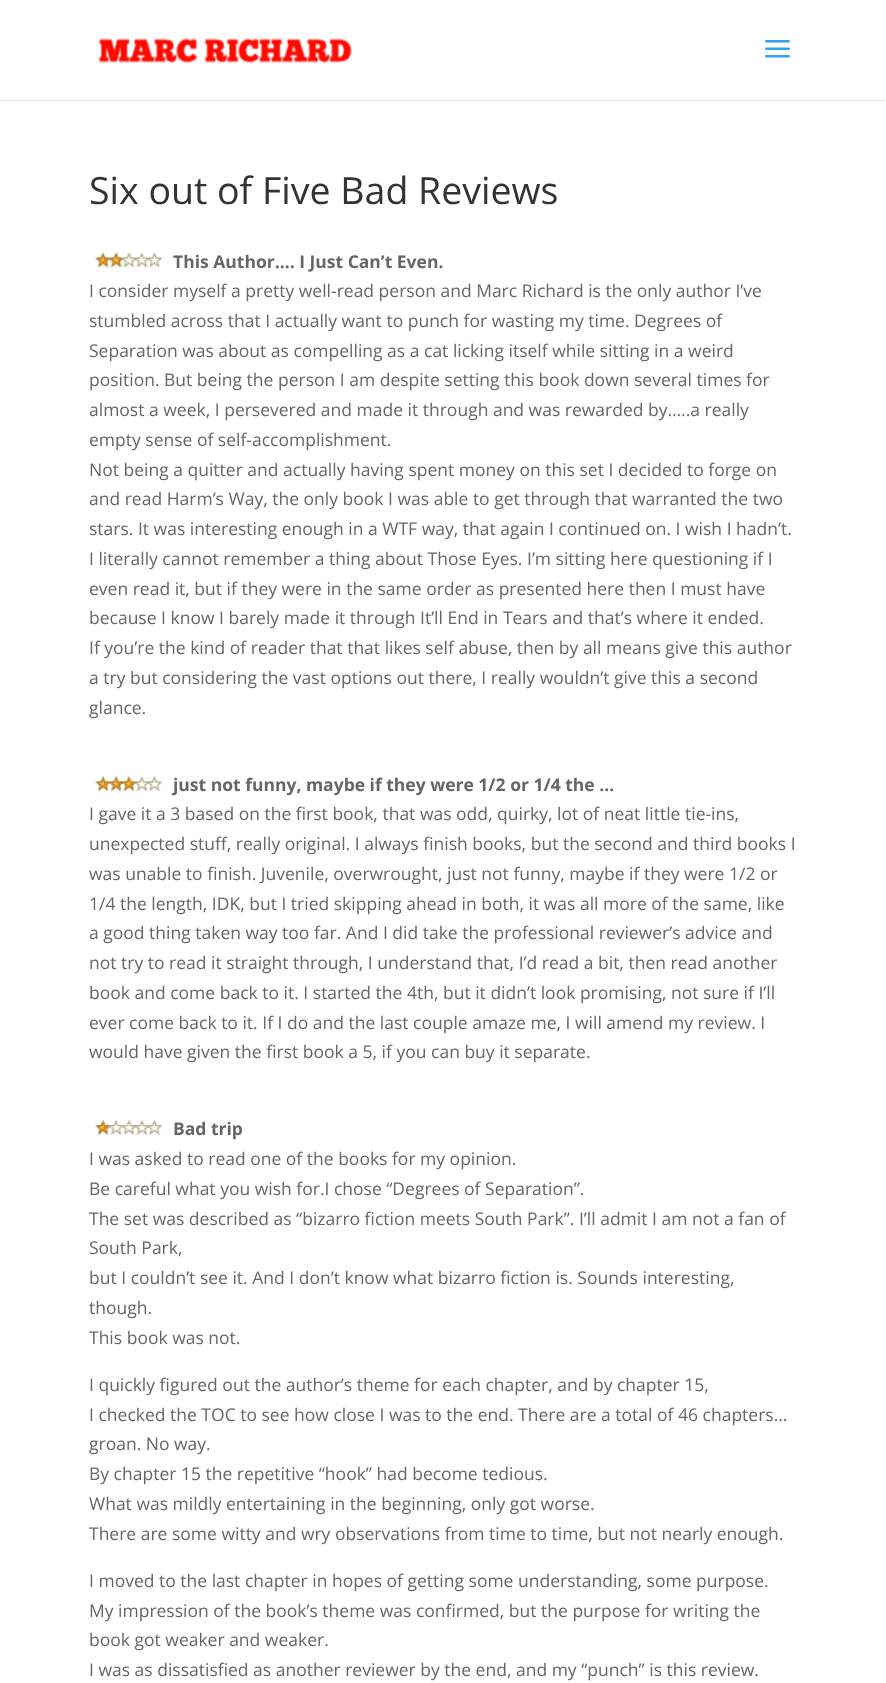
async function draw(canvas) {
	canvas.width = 886;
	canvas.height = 1683;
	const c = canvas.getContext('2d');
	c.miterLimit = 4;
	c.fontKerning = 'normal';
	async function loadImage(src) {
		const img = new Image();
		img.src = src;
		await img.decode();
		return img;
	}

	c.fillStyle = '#fff';
	c.fillRect(0, 0, 886, 1683);
	c.fillStyle = '#e6e6e6';
	c.fillRect(0, 100, 886, 1);
	c.drawImage(await loadImage('img1.png'), 98, 38, 254, 25);
	c.drawImage(await loadImage('img2.png'), 765, 40, 25, 18);
	c.font = '37.5px Open Sans';
	c.fillStyle = '#333';
	c.fillText('Six out of Five Bad Reviews', 89, 204);
	c.drawImage(await loadImage('img3.png'), 94, 252, 69, 16);
	c.font = 'bold 17.5px Open Sans';
	c.fillStyle = '#666';
	c.fillText('This Author…. I Just Can’t Even.', 173, 268);
	c.font = '17.5px Open Sans';
	for (const [text, x, y] of [
		['I consider myself a pretty well-read person and Marc Richard is the only author I’ve', 89, 297],
		['stumbled across that I actually want to punch for wasting my time. Degrees of', 89, 327],
		['Separation was about as compelling as a cat licking itself while sitting in a weird', 89, 357],
		['position. But being the person I am despite setting this book down several times for', 89, 386],
		['almost a week, I persevered and made it through and was rewarded by…..a really', 89, 416],
		['empty sense of self-accomplishment.', 89, 446],
		['Not being a quitter and actually having spent money on this set I decided to forge on', 89, 476],
		['and read Harm’s Way, the only book I was able to get through that warranted the two', 89, 505],
		['stars. It was interesting enough in a WTF way, that again I continued on. I wish I hadn’t.', 89, 535],
		['I literally cannot remember a thing about Those Eyes. I’m sitting here questioning if I', 89, 565],
		['even read it, but if they were in the same order as presented here then I must have', 89, 595],
		['because I know I barely made it through It’ll End in Tears and that’s where it ended.', 89, 624],
		['If you’re the kind of reader that that likes self abuse, then by all means give this author', 89, 654],
		['a try but considering the vast options out there, I really wouldn’t give this a second', 89, 684],
		['glance.', 89, 714],
	]) {
		c.fillText(text, x, y);
	}
	c.drawImage(await loadImage('img4.png'), 94, 776, 69, 16);
	c.font = 'bold 17.5px Open Sans';
	c.fillText('just not funny, maybe if they were 1/2 or 1/4 the …', 173, 791);
	c.font = '17.5px Open Sans';
	for (const [text, x, y] of [
		['I gave it a 3 based on the first book, that was odd, quirky, lot of neat little tie-ins,', 89, 820],
		['unexpected stuff, really original. I always finish books, but the second and third books I', 89, 850],
		['was unable to finish. Juvenile, overwrought, just not funny, maybe if they were 1/2 or', 89, 880],
		['1/4 the length, IDK, but I tried skipping ahead in both, it was all more of the same, like', 89, 910],
		['a good thing taken way too far. And I did take the professional reviewer’s advice and', 89, 939],
		['not try to read it straight through, I understand that, I’d read a bit, then read another', 89, 969],
		['book and come back to it. I started the 4th, but it didn’t look promising, not sure if I’ll', 89, 999],
		['ever come back to it. If I do and the last couple amaze me, I will amend my review. I', 89, 1029],
		['would have given the first book a 5, if you can buy it separate.', 89, 1058],
	]) {
		c.fillText(text, x, y);
	}
	c.drawImage(await loadImage('img5.png'), 94, 1120, 69, 15);
	c.font = 'bold 17.5px Open Sans';
	c.fillText('Bad trip', 173, 1135);
	c.font = '17.5px Open Sans';
	for (const [text, x, y] of [
		['I was asked to read one of the books for my opinion.', 89, 1165],
		['Be careful what you wish for.I chose “Degrees of Separation”.', 89, 1195],
		['The set was described as “bizarro fiction meets South Park”. I’ll admit I am not a fan of', 89, 1225],
		['South Park,', 89, 1254],
		['but I couldn’t see it. And I don’t know what bizarro fiction is. Sounds interesting,', 89, 1284],
		['though.', 89, 1314],
		['This book was not.', 89, 1344],
		['I quickly figured out the author’s theme for each chapter, and by chapter 15,', 89, 1391],
		['I checked the TOC to see how close I was to the end. There are a total of 46 chapters…', 89, 1421],
		['groan. No way.', 89, 1450],
		['By chapter 15 the repetitive “hook” had become tedious.', 89, 1480],
		['What was mildly entertaining in the beginning, only got worse.', 89, 1510],
		['There are some witty and wry observations from time to time, but not nearly enough.', 89, 1540],
		['I moved to the last chapter in hopes of getting some understanding, some purpose.', 89, 1587],
		['My impression of the book’s theme was confirmed, but the purpose for writing the', 89, 1617],
		['book got weaker and weaker.', 89, 1646],
		['I was as dissatisfied as another reviewer by the end, and my “punch” is this review.', 89, 1676],
	]) {
		c.fillText(text, x, y);
	}
}

draw(document.querySelector('canvas'));
